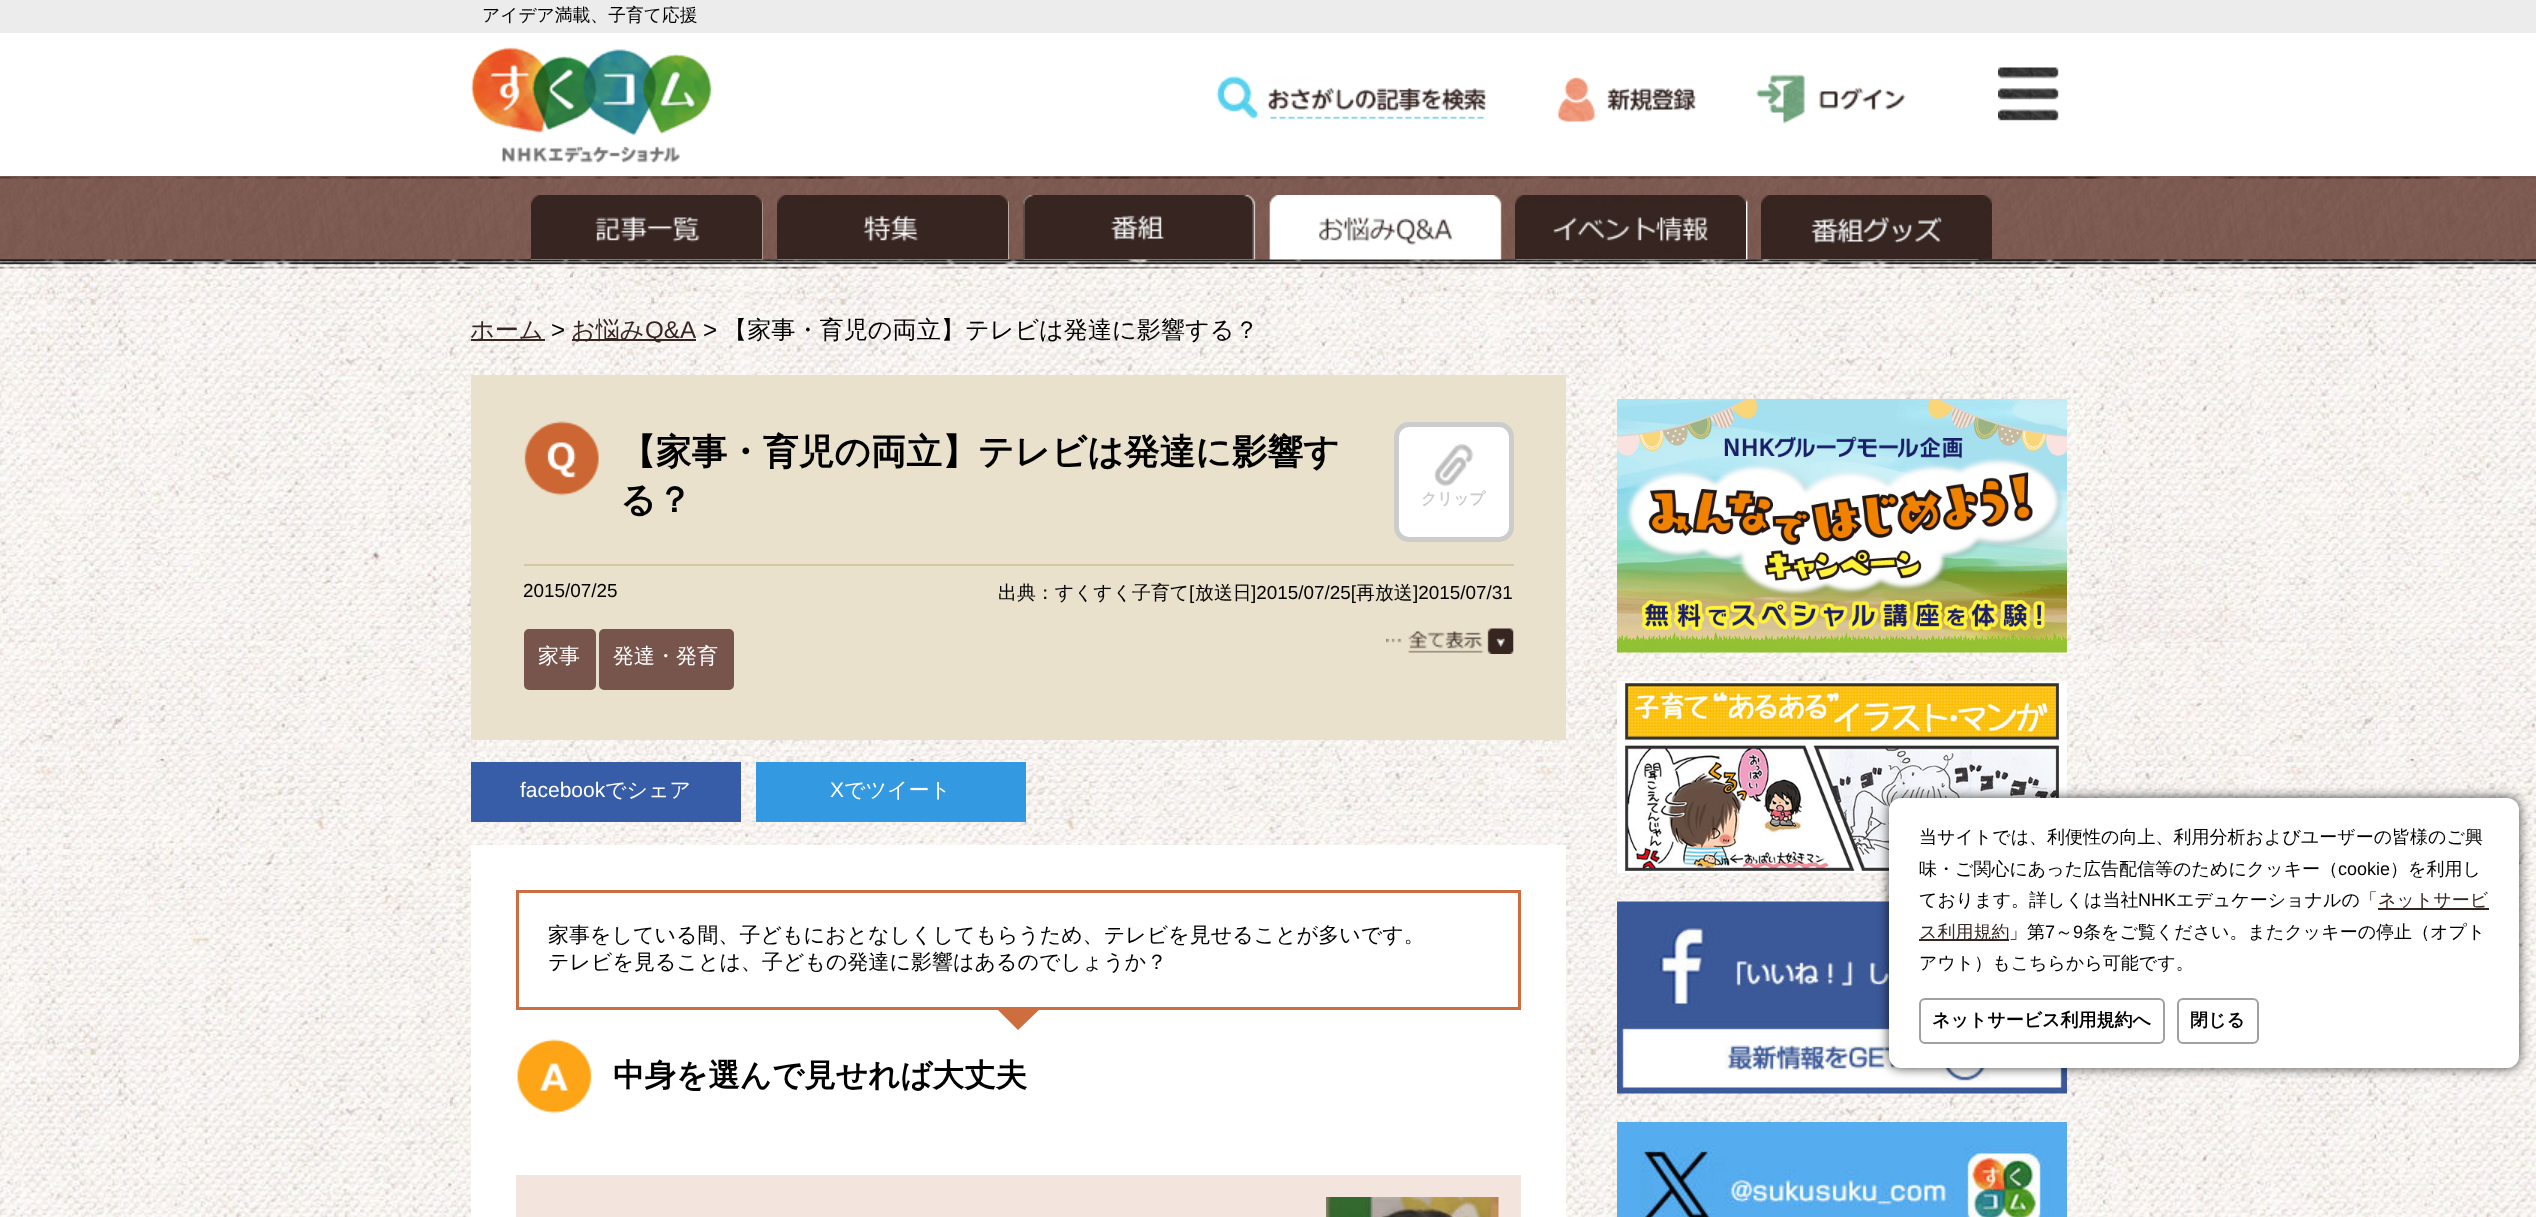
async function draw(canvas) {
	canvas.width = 2536;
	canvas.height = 1217;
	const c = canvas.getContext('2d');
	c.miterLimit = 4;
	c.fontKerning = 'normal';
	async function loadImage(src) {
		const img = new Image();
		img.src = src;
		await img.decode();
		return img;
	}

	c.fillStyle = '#fff';
	c.fillRect(0, 0, 2536, 1217);
	c.drawImage(await loadImage('img1.png'), 0, 268, 2536, 949);
	c.fillStyle = '#ececec';
	c.fillRect(0, 0, 2536, 33);
	c.font = '500 17.8px WenQuanYi Zen Hei';
	c.fillStyle = '#000';
	c.fillText('アイデア満載、子育て応援', 482, 21);
	c.drawImage(await loadImage('img2.png'), 471, 47, 241, 89);
	c.drawImage(await loadImage('img3.png'), 502, 146, 178, 17);
	c.drawImage(await loadImage('img4.png'), 1216, 76, 270, 43);
	c.drawImage(await loadImage('img5.png'), 1558, 77, 138, 45);
	c.drawImage(await loadImage('img6.png'), 1756, 74, 150, 50);
	c.drawImage(await loadImage('img7.png'), 1998, 67, 61, 54);
	c.drawImage(await loadImage('img8.png'), 0, 176, 2536, 93);
	c.drawImage(await loadImage('img9.png'), 531, 195, 1448, 65);
	c.drawImage(await loadImage('img10.png'), 531, 195, 231, 65);
	c.drawImage(await loadImage('img11.png'), 777, 195, 231, 65);
	c.drawImage(await loadImage('img12.png'), 1023, 195, 231, 65);
	c.drawImage(await loadImage('img13.png'), 1515, 195, 231, 65);
	c.drawImage(await loadImage('img14.png'), 1761, 195, 231, 65);
	c.fillStyle = '#362521';
	c.fillRect(471, 339, 74, 2);
	c.font = '500 24.15px WenQuanYi Zen Hei';
	c.fillText('ホーム', 470, 338);
	c.font = '24.15px Liberation Sans';
	c.fillStyle = '#000';
	c.fillText('>', 551, 338);
	c.fillStyle = '#362521';
	c.fillRect(572, 339, 124, 2);
	c.font = '500 24.15px WenQuanYi Zen Hei';
	c.fillText('お悩み', 571, 338);
	c.font = '24.15px Liberation Sans';
	c.fillText('Q&A', 645, 338);
	c.fillStyle = '#000';
	c.fillText('>', 703, 338);
	c.font = '500 24.15px WenQuanYi Zen Hei';
	c.fillText('【家事・育児の両立】テレビは発達に影響する？', 723, 338);
	c.fillStyle = '#e9e1cb';
	c.fillRect(471, 375, 1095, 365);
	c.drawImage(await loadImage('img15.png'), 524, 421, 75, 75);
	c.font = 'bold 35.7px WenQuanYi Zen Hei';
	c.fillStyle = '#000';
	c.fillText('【家事・育児の両立】テレビは発達に影響す', 620, 464);
	c.fillText('る？', 620, 512);
	c.fillStyle = '#fff';
	c.beginPath();
	c.roundRect(1396.5, 424.5, 115, 115, 12.5);
	c.fill();
	c.strokeStyle = '#ccc';
	c.lineWidth = 5;
	c.stroke();
	c.drawImage(await loadImage('img16.png'), 1434, 444, 40, 42);
	c.font = 'bold 15.75px WenQuanYi Zen Hei';
	c.fillStyle = '#ccc';
	c.fillText('クリップ', 1421, 504);
	c.fillStyle = '#d5c7a2';
	c.fillRect(524, 564, 990, 2);
	c.font = '18.9px Liberation Sans';
	c.fillStyle = '#000';
	c.fillText('2015/07/25', 523, 597);
	c.font = '500 18.9px WenQuanYi Zen Hei';
	c.fillText('出典：すくすく子育て', 998, 599);
	c.font = '18.9px Liberation Sans';
	c.fillText('[', 1189, 599);
	c.font = '500 18.9px WenQuanYi Zen Hei';
	c.fillText('放送日', 1195, 599);
	c.font = '18.9px Liberation Sans';
	c.fillText(']2015/07/25[', 1251, 599);
	c.font = '500 18.9px WenQuanYi Zen Hei';
	c.fillText('再放送', 1356, 599);
	c.font = '18.9px Liberation Sans';
	c.fillText(']2015/07/31', 1413, 599);
	c.fillStyle = '#78554c';
	c.beginPath();
	c.roundRect(528, 633, 64, 53, 1);
	c.fill();
	c.strokeStyle = '#78554c';
	c.lineWidth = 8;
	c.stroke();
	c.font = '500 21px WenQuanYi Zen Hei';
	c.fillStyle = '#fff';
	c.fillText('家事', 538, 663);
	c.fillStyle = '#78554c';
	c.beginPath();
	c.roundRect(603, 633, 127, 53, 1);
	c.fill();
	c.stroke();
	c.fillStyle = '#fff';
	c.fillText('発達・発育', 613, 663);
	c.drawImage(await loadImage('img17.png'), 1386, 628, 128, 26);
	c.fillStyle = '#375da8';
	c.fillRect(471, 762, 270, 60);
	c.font = '21px Liberation Sans';
	c.fillStyle = '#fff';
	c.fillText('facebook', 520, 797);
	c.font = '500 21px WenQuanYi Zen Hei';
	c.fillText('でシェア', 605, 797);
	c.fillStyle = '#3399e1';
	c.fillRect(756, 762, 270, 60);
	c.font = '21px Liberation Sans';
	c.fillStyle = '#fff';
	c.fillText('X', 830, 797);
	c.font = '500 21px WenQuanYi Zen Hei';
	c.fillText('でツイート', 844, 797);
	c.fillRect(471, 845, 1095, 372);
	c.strokeStyle = '#ce6d3d';
	c.lineWidth = 3;
	c.strokeRect(517.5, 891.5, 1002, 117);
	c.fillStyle = '#000';
	c.fillText('家事をしている間、子どもにおとなしくしてもらうため、テレビを見せることが多いです。', 548, 942);
	c.fillText('テレビを見ることは、子どもの発達に影響はあるのでしょうか？', 548, 969);
	c.fillStyle = '#ce6d3d';
	c.beginPath();
	c.moveTo(996, 1008);
	c.lineTo(1041, 1008);
	c.lineTo(1018, 1030);
	c.closePath();
	c.fill();
	c.drawImage(await loadImage('img18.png'), 517, 1039, 75, 75);
	c.font = 'bold 31.5px WenQuanYi Zen Hei';
	c.fillStyle = '#000';
	c.fillText('中身を選んで見せれば大丈夫', 613, 1086);
	c.fillStyle = '#f4e4de';
	c.fillRect(516, 1175, 1005, 42);
	c.drawImage(await loadImage('img19.png'), 1326, 1197, 173, 20);
	c.drawImage(await loadImage('img20.png'), 1617, 399, 450, 254);
	c.drawImage(await loadImage('img21.png'), 1617, 681, 450, 192);
	c.drawImage(await loadImage('img22.png'), 1617, 901, 450, 193);
	c.drawImage(await loadImage('img23.png'), 1617, 1122, 450, 95);
	c.fillStyle = '#000000bf';
	c.filter = 'blur(6px)';
	c.beginPath();
	c.roundRect(1889, 798, 630, 270, 12);
	c.fill();
	c.filter = 'none';
	c.fillStyle = '#fff';
	c.beginPath();
	c.roundRect(1889, 798, 630, 270, 12);
	c.fill();
	c.font = '500 18px WenQuanYi Zen Hei';
	c.fillStyle = '#000';
	c.fillText('当サイトでは、利便性の向上、利用分析およびユーザーの皆様のご興', 1919, 843);
	c.fillText('味・ご関心にあった広告配信等のためにクッキー（', 1919, 875);
	c.font = '18px Liberation Sans';
	c.fillText('cookie', 2338, 875);
	c.font = '500 18px WenQuanYi Zen Hei';
	c.fillText('）を利用し', 2390, 875);
	c.fillText('ております。詳しくは当社', 1919, 906);
	c.font = '18px Liberation Sans';
	c.fillText('NHK', 2138, 906);
	c.font = '500 18px WenQuanYi Zen Hei';
	c.fillText('エデュケーショナルの「', 2176, 906);
	c.fillStyle = '#362521';
	c.fillRect(2378, 908, 111, 2);
	c.fillText('ネットサービ', 2378, 906);
	c.fillRect(1919, 939, 90, 2);
	c.fillText('ス利用規約', 1919, 938);
	c.fillStyle = '#000';
	c.fillText('」第', 2009, 938);
	c.font = '18px Liberation Sans';
	c.fillText('7', 2045, 938);
	c.font = '500 18px WenQuanYi Zen Hei';
	c.fillText('～', 2055, 938);
	c.font = '18px Liberation Sans';
	c.fillText('9', 2073, 938);
	c.font = '500 18px WenQuanYi Zen Hei';
	c.fillText('条をご覧ください。またクッキーの停止（オプト', 2083, 938);
	c.fillText('アウト）もこちらから可能です。', 1919, 969);
	c.beginPath();
	c.roundRect(1920, 999, 244, 44, 5);
	c.strokeStyle = '#a0a0a0';
	c.lineWidth = 2;
	c.stroke();
	c.font = 'bold 18px WenQuanYi Zen Hei';
	c.fillText('ネットサービス利用規約へ', 1932, 1026);
	c.beginPath();
	c.roundRect(2178, 999, 80, 44, 5);
	c.stroke();
	c.fillText('閉じる', 2190, 1026);
}

draw(document.querySelector('canvas'));
